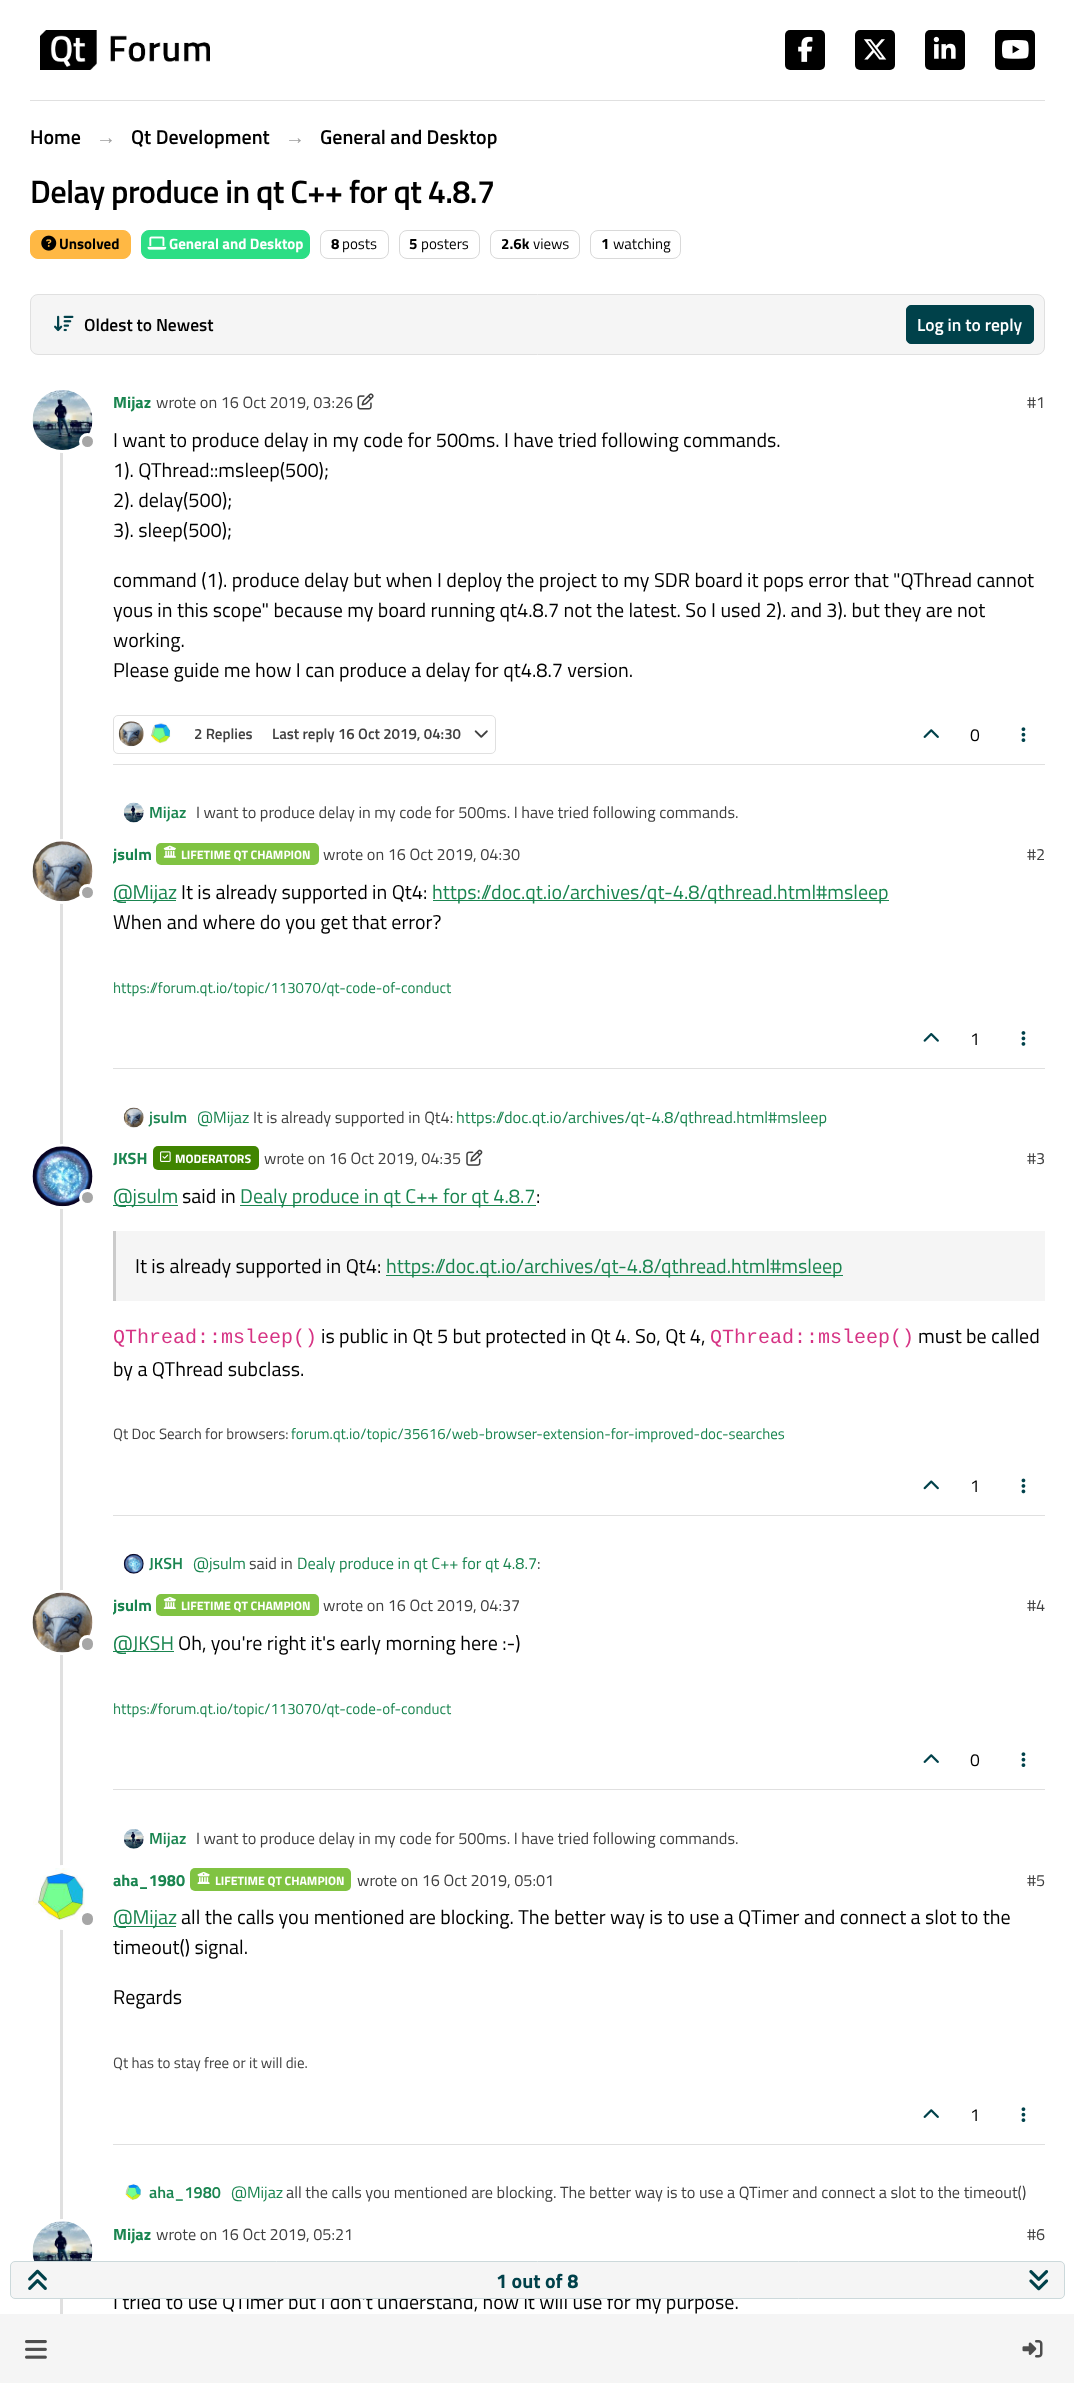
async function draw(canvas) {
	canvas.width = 1074;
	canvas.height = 2383;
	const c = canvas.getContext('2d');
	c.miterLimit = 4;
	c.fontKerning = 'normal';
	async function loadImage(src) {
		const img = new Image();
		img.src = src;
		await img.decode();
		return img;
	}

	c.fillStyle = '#fff';
	c.fillRect(0, 0, 1074, 2383);
	c.fillStyle = '#e0e0e0';
	c.fillRect(30, 100, 1015, 1);
	c.drawImage(await loadImage('img1.png'), 40, 30, 170, 40);
	c.fillStyle = '#000';
	c.beginPath();
	c.roundRect(785, 30, 40, 40, 5);
	c.fill();
	c.drawImage(await loadImage('img2.png'), 798, 36, 15, 26);
	c.beginPath();
	c.roundRect(855, 30, 40, 40, 5);
	c.fill();
	c.drawImage(await loadImage('img3.png'), 863, 39, 24, 21);
	c.beginPath();
	c.roundRect(925, 30, 40, 40, 5);
	c.fill();
	c.drawImage(await loadImage('img4.png'), 933, 36, 23, 23);
	c.beginPath();
	c.roundRect(995, 30, 40, 40, 5);
	c.fill();
	c.drawImage(await loadImage('img5.png'), 1002, 40, 27, 19);
	c.font = '600 20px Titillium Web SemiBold';
	c.fillText('Home', 30, 144);
	c.font = 'bold 20px Liberation Sans';
	c.fillStyle = '#9e9e9e';
	c.fillText('→', 96, 144);
	c.font = '600 20px Titillium Web SemiBold';
	c.fillStyle = '#000';
	c.fillText('Qt Development', 131, 144);
	c.font = 'bold 20px Liberation Sans';
	c.fillStyle = '#9e9e9e';
	c.fillText('→', 285, 144);
	c.font = '600 20px Titillium Web SemiBold';
	c.fillStyle = '#000';
	c.fillText('General and Desktop', 320, 144);
	c.letterSpacing = '-0.65px';
	c.font = '600 32.5px Titillium Web SemiBold';
	c.fillText('Delay produce in qt C++ for qt 4.8.7', 30, 203);
	c.fillStyle = '#ffb844';
	c.beginPath();
	c.roundRect(30.5, 230.5, 100, 28, 7.5);
	c.fill();
	c.strokeStyle = '#ffb844';
	c.stroke();
	c.drawImage(await loadImage('img6.png'), 41, 235, 16, 16);
	c.letterSpacing = '0px';
	c.font = 'bold 15px Titillium Web';
	c.fillStyle = '#000';
	c.fillText('Unsolved', 59, 249);
	c.fillStyle = '#2cde85';
	c.beginPath();
	c.roundRect(141.5, 230.5, 168, 28, 7.5);
	c.fill();
	c.strokeStyle = '#2cde85';
	c.stroke();
	c.drawImage(await loadImage('img7.png'), 147, 236, 20, 14);
	c.fillStyle = '#fff';
	c.fillText('General and Desktop', 169, 249);
	c.beginPath();
	c.roundRect(320.5, 230.5, 68, 28, 7.5);
	c.strokeStyle = '#d9d9d9';
	c.stroke();
	c.fillStyle = '#000';
	c.fillText('8', 331, 249);
	c.font = '15px Titillium Web';
	c.fillText('posts', 342, 249);
	c.beginPath();
	c.roundRect(399.5, 230.5, 80, 28, 7.5);
	c.stroke();
	c.font = 'bold 15px Titillium Web';
	c.fillText('5', 409, 249);
	c.font = '15px Titillium Web';
	c.fillText('posters', 421, 249);
	c.beginPath();
	c.roundRect(490.5, 230.5, 89, 28, 7.5);
	c.stroke();
	c.font = 'bold 15px Titillium Web';
	c.fillText('2.6k', 501, 249);
	c.font = '15px Titillium Web';
	c.fillText('views', 533, 249);
	c.beginPath();
	c.roundRect(590.5, 230.5, 90, 28, 7.5);
	c.stroke();
	c.font = 'bold 15px Titillium Web';
	c.fillText('1', 601, 249);
	c.font = '15px Titillium Web';
	c.fillText('watching', 613, 249);
	c.fillStyle = '#f5f5f5';
	c.beginPath();
	c.roundRect(30.5, 294.5, 1014, 60, 7.5);
	c.fill();
	c.strokeStyle = '#e0e0e0';
	c.stroke();
	c.drawImage(await loadImage('img8.png'), 54, 315, 20, 17);
	c.font = '600 17.5px Titillium Web SemiBold';
	c.fillStyle = '#000';
	c.fillText('Oldest to Newest', 84, 331);
	c.fillStyle = '#00414a';
	c.beginPath();
	c.roundRect(906.5, 305.5, 127, 38, 4.5);
	c.fill();
	c.strokeStyle = '#00414a';
	c.stroke();
	c.fillStyle = '#fff';
	c.fillText('Log in to reply', 917, 331);
	c.fillStyle = '#e0e0e0';
	c.fillRect(60, 449, 3, 1865);
	c.beginPath();
	c.arc(62.5, 420.5, 31, 0, 2 * Math.PI);
	c.strokeStyle = '#fff';
	c.lineWidth = 3;
	c.stroke();
	c.drawImage(await loadImage('img9.png'), 32, 390, 61, 60);
	c.fillStyle = '#a6a6a6';
	c.beginPath();
	c.arc(87.5, 441.5, 7, 0, 2 * Math.PI);
	c.fill();
	c.stroke();
	c.font = 'bold 16.25px Titillium Web';
	c.fillStyle = '#1a8550';
	c.fillText('Mijaz', 113, 408);
	c.font = '16.25px Titillium Web';
	c.fillStyle = '#404040';
	c.fillText('wrote on 16 Oct 2019, 03:26', 156, 408);
	c.drawImage(await loadImage('img10.png'), 357, 393, 17, 17);
	c.fillText('#1', 1027, 408);
	c.font = '20px Titillium Web';
	c.fillStyle = '#000';
	for (const [text, x, y] of [
		['I want to produce delay in my code for 500ms. I have tried following commands.', 113, 447],
		['1). QThread::msleep(500);', 113, 477],
		['2). delay(500);', 113, 507],
		['3). sleep(500);', 113, 537],
		['command (1). produce delay but when I deploy the project to my SDR board it pops error that "QThread cannot', 113, 587],
		['yous in this scope" because my board running qt4.8.7 not the latest. So I used 2). and 3). but they are not', 113, 617],
		['working.', 113, 647],
		['Please guide me how I can produce a delay for qt4.8.7 version.', 113, 677],
	]) {
		c.fillText(text, x, y);
	}
	c.fillStyle = '#e0e0e0';
	c.fillRect(113, 764, 932, 1);
	c.beginPath();
	c.roundRect(113.5, 715.5, 382, 38, 4.5);
	c.strokeStyle = '#e0e0e0';
	c.lineWidth = 1;
	c.stroke();
	c.drawImage(await loadImage('img11.png'), 118, 721, 26, 26);
	c.drawImage(await loadImage('img12.png'), 150, 722, 21, 22);
	c.font = '600 15px Titillium Web SemiBold';
	c.fillStyle = '#404040';
	c.fillText('2 Replies', 194, 739);
	c.fillText('Last reply 16 Oct 2019, 04:30', 272, 739);
	c.drawImage(await loadImage('img13.png'), 474, 730, 14, 8);
	c.drawImage(await loadImage('img14.png'), 923, 729, 16, 9);
	c.font = '17.5px Titillium Web';
	c.fillStyle = '#000';
	c.fillText('0', 970, 741);
	c.drawImage(await loadImage('img15.png'), 1021, 727, 5, 15);
	c.drawImage(await loadImage('img16.png'), 123, 802, 21, 21);
	c.font = '600 16.25px Titillium Web SemiBold';
	c.fillStyle = '#1a8550';
	c.fillText('Mijaz', 149, 818);
	c.font = '16.25px Titillium Web';
	c.fillStyle = '#404040';
	c.fillText('I want to produce delay in my code for 500ms. I have tried following commands.', 196, 818);
	c.beginPath();
	c.arc(62.5, 871.5, 31, 0, 2 * Math.PI);
	c.strokeStyle = '#fff';
	c.lineWidth = 3;
	c.stroke();
	c.drawImage(await loadImage('img17.png'), 32, 841, 61, 61);
	c.fillStyle = '#a6a6a6';
	c.beginPath();
	c.arc(87.5, 892.5, 7, 0, 2 * Math.PI);
	c.fill();
	c.stroke();
	c.save();
	c.beginPath();
	c.rect(113, 841, 38, 25);
	c.clip();
	c.font = 'bold 16.25px Titillium Web';
	c.fillStyle = '#1a8550';
	c.fillText('jsulm', 113, 860);
	c.restore();
	c.fillStyle = '#80c342';
	c.beginPath();
	c.roundRect(156, 843, 163, 22, 5);
	c.fill();
	c.drawImage(await loadImage('img18.png'), 163, 845, 13, 13);
	c.font = 'bold 12.25px Titillium Web';
	c.fillStyle = '#fff';
	c.fillText('LIFETIME QT CHAMPION', 181, 859);
	c.font = '16.25px Titillium Web';
	c.fillStyle = '#404040';
	c.fillText('wrote on 16 Oct 2019, 04:30', 323, 860);
	c.fillText('#2', 1027, 860);
	c.fillStyle = '#1a8550';
	c.fillRect(113, 900, 63, 1);
	c.font = '20px Titillium Web';
	c.fillText('@Mijaz', 113, 899);
	c.fillStyle = '#000';
	c.fillText('It is already supported in Qt4:', 181, 899);
	c.fillStyle = '#1a8550';
	c.fillRect(433, 900, 456, 1);
	c.fillText('https://doc.qt.io/archives/qt-4.8/qthread.html#msleep', 432, 899);
	c.fillStyle = '#000';
	c.fillText('When and where do you get that error?', 113, 929);
	c.fillStyle = '#e0e0e0';
	c.fillRect(113, 1068, 932, 1);
	c.font = '15px Titillium Web';
	c.fillStyle = '#1a8550';
	c.fillText('https://forum.qt.io/topic/113070/qt-code-of-conduct', 113, 993);
	c.drawImage(await loadImage('img19.png'), 923, 1033, 16, 9);
	c.font = '17.5px Titillium Web';
	c.fillStyle = '#000';
	c.fillText('1', 970, 1045);
	c.drawImage(await loadImage('img20.png'), 1021, 1031, 5, 15);
	c.drawImage(await loadImage('img21.png'), 123, 1107, 21, 21);
	c.font = '600 16.25px Titillium Web SemiBold';
	c.fillStyle = '#1a8550';
	c.fillText('jsulm', 149, 1123);
	c.save();
	c.beginPath();
	c.rect(198, 1105, 836, 25);
	c.clip();
	c.font = '16.25px Titillium Web';
	c.fillText('@', 197, 1123);
	c.restore();
	c.font = '16.25px Titillium Web';
	c.fillText('Mijaz', 213, 1123);
	c.fillStyle = '#404040';
	c.fillText('It is already supported in Qt4:', 253, 1123);
	c.fillStyle = '#1a8550';
	c.fillText('https://doc.qt.io/archives/qt-4.8/qthread.html#msleep', 456, 1123);
	c.beginPath();
	c.arc(62.5, 1176.5, 31, 0, 2 * Math.PI);
	c.stroke();
	c.drawImage(await loadImage('img22.png'), 32, 1146, 61, 61);
	c.fillStyle = '#a6a6a6';
	c.beginPath();
	c.arc(87.5, 1197.5, 7, 0, 2 * Math.PI);
	c.fill();
	c.stroke();
	c.font = 'bold 16.25px Titillium Web';
	c.fillStyle = '#1a8550';
	c.fillText('JKSH', 113, 1164);
	c.fillStyle = '#408500';
	c.beginPath();
	c.roundRect(153, 1146, 106, 24, 5);
	c.fill();
	c.drawImage(await loadImage('img23.png'), 160, 1151, 11, 11);
	c.font = 'bold 12.25px Titillium Web';
	c.fillStyle = '#fff';
	c.fillText('MODERATORS', 175, 1163);
	c.font = '16.25px Titillium Web';
	c.fillStyle = '#404040';
	c.fillText('wrote on 16 Oct 2019, 04:35', 264, 1164);
	c.drawImage(await loadImage('img24.png'), 466, 1149, 17, 17);
	c.fillText('#3', 1027, 1164);
	c.fillStyle = '#1a8550';
	c.fillRect(113, 1205, 65, 1);
	c.font = '20px Titillium Web';
	c.fillText('@jsulm', 113, 1203);
	c.fillStyle = '#000';
	c.fillText('said in', 182, 1203);
	c.fillStyle = '#1a8550';
	c.fillRect(240, 1205, 296, 1);
	c.fillText('Dealy produce in qt C++ for qt 4.8.7', 240, 1203);
	c.fillStyle = '#000';
	c.fillText(':', 536, 1203);
	c.fillStyle = '#f5f5f5';
	c.fillRect(116, 1231, 929, 70);
	c.fillStyle = '#cbcbcb';
	c.fillRect(113, 1231, 3, 70);
	c.fillStyle = '#000';
	c.fillText('It is already supported in Qt4:', 135, 1273);
	c.fillStyle = '#1a8550';
	c.fillRect(386, 1275, 457, 1);
	c.fillText('https://doc.qt.io/archives/qt-4.8/qthread.html#msleep', 386, 1273);
	c.font = '20px Liberation Mono';
	c.fillStyle = '#d63384';
	c.fillText('QThread::msleep()', 113, 1343);
	c.font = '20px Titillium Web';
	c.fillStyle = '#000';
	c.fillText('is public in Qt 5 but protected in Qt 4. So, Qt 4,', 321, 1343);
	c.font = '20px Liberation Mono';
	c.fillStyle = '#d63384';
	c.fillText('QThread::msleep()', 710, 1343);
	c.font = '20px Titillium Web';
	c.fillStyle = '#000';
	c.fillText('must be called', 918, 1343);
	c.fillText('by a QThread subclass.', 113, 1376);
	c.fillStyle = '#e0e0e0';
	c.fillRect(113, 1515, 932, 1);
	c.font = '15px Titillium Web';
	c.fillStyle = '#404040';
	c.fillText('Qt Doc Search for browsers:', 113, 1439);
	c.fillStyle = '#1a8550';
	c.fillText('forum.qt.io/topic/35616/web-browser-extension-for-improved-doc-searches', 291, 1439);
	c.drawImage(await loadImage('img25.png'), 923, 1480, 16, 10);
	c.font = '17.5px Titillium Web';
	c.fillStyle = '#000';
	c.fillText('1', 970, 1492);
	c.drawImage(await loadImage('img26.png'), 1021, 1478, 5, 16);
	c.drawImage(await loadImage('img27.png'), 123, 1553, 21, 21);
	c.font = '600 16.25px Titillium Web SemiBold';
	c.fillStyle = '#1a8550';
	c.fillText('JKSH', 149, 1569);
	c.font = '16.25px Titillium Web';
	c.fillText('@jsulm', 193, 1569);
	c.fillStyle = '#404040';
	c.fillText('said in', 249, 1569);
	c.fillStyle = '#1a8550';
	c.fillText('Dealy produce in qt C++ for qt 4.8.7', 297, 1569);
	c.fillStyle = '#404040';
	c.fillText(':', 537, 1569);
	c.beginPath();
	c.arc(62.5, 1622.5, 31, 0, 2 * Math.PI);
	c.stroke();
	c.drawImage(await loadImage('img28.png'), 32, 1592, 61, 61);
	c.fillStyle = '#a6a6a6';
	c.beginPath();
	c.roundRect(80.5, 1636.5, 14, 15, 7);
	c.fill();
	c.stroke();
	c.save();
	c.beginPath();
	c.rect(113, 1593, 38, 25);
	c.clip();
	c.font = 'bold 16.25px Titillium Web';
	c.fillStyle = '#1a8550';
	c.fillText('jsulm', 113, 1611);
	c.restore();
	c.fillStyle = '#80c342';
	c.beginPath();
	c.roundRect(156, 1594, 163, 22, 5);
	c.fill();
	c.drawImage(await loadImage('img29.png'), 163, 1596, 13, 13);
	c.font = 'bold 12.25px Titillium Web';
	c.fillStyle = '#fff';
	c.fillText('LIFETIME QT CHAMPION', 181, 1610);
	c.font = '16.25px Titillium Web';
	c.fillStyle = '#404040';
	c.fillText('wrote on 16 Oct 2019, 04:37', 323, 1611);
	c.fillText('#4', 1027, 1611);
	c.fillStyle = '#1a8550';
	c.fillRect(113, 1651, 61, 1);
	c.font = '20px Titillium Web';
	c.fillText('@JKSH', 113, 1650);
	c.fillStyle = '#000';
	c.fillText('Oh, you\'re right it\'s early morning here :-)', 178, 1650);
	c.fillStyle = '#e0e0e0';
	c.fillRect(113, 1789, 932, 1);
	c.font = '15px Titillium Web';
	c.fillStyle = '#1a8550';
	c.fillText('https://forum.qt.io/topic/113070/qt-code-of-conduct', 113, 1714);
	c.drawImage(await loadImage('img14.png'), 923, 1754, 16, 9);
	c.font = '17.5px Titillium Web';
	c.fillStyle = '#000';
	c.fillText('0', 970, 1766);
	c.drawImage(await loadImage('img15.png'), 1021, 1752, 5, 15);
	c.drawImage(await loadImage('img30.png'), 124, 1829, 20, 20);
	c.font = '600 16.25px Titillium Web SemiBold';
	c.fillStyle = '#1a8550';
	c.fillText('Mijaz', 149, 1844);
	c.font = '16.25px Titillium Web';
	c.fillStyle = '#404040';
	c.fillText('I want to produce delay in my code for 500ms. I have tried following commands.', 196, 1844);
	c.fillStyle = '#fff';
	c.beginPath();
	c.arc(62.5, 1897.5, 31, 0, 2 * Math.PI);
	c.fill();
	c.stroke();
	c.drawImage(await loadImage('img31.png'), 33, 1868, 52, 52);
	c.fillStyle = '#a6a6a6';
	c.beginPath();
	c.roundRect(80.5, 1911.5, 14, 15, 7);
	c.fill();
	c.stroke();
	c.font = 'bold 16.25px Titillium Web';
	c.fillStyle = '#1a8550';
	c.fillText('aha_1980', 113, 1886);
	c.fillStyle = '#80c342';
	c.beginPath();
	c.roundRect(190, 1868, 161, 23, 5);
	c.fill();
	c.drawImage(await loadImage('img32.png'), 197, 1871, 13, 13);
	c.font = 'bold 12.25px Titillium Web';
	c.fillStyle = '#fff';
	c.fillText('LIFETIME QT CHAMPION', 215, 1885);
	c.font = '16.25px Titillium Web';
	c.fillStyle = '#404040';
	c.fillText('wrote on 16 Oct 2019, 05:01', 357, 1886);
	c.fillText('#5', 1027, 1886);
	c.fillStyle = '#1a8550';
	c.fillRect(113, 1926, 63, 1);
	c.font = '20px Titillium Web';
	c.fillText('@Mijaz', 113, 1924);
	c.fillStyle = '#000';
	for (const [text, x, y] of [
		['all the calls you mentioned are blocking. The better way is to use a QTimer and connect a slot to the', 181, 1924],
		['timeout() signal.', 113, 1954],
		['Regards', 113, 2004],
	]) {
		c.fillText(text, x, y);
	}
	c.fillStyle = '#e0e0e0';
	c.fillRect(113, 2144, 932, 1);
	c.font = '15px Titillium Web';
	c.fillStyle = '#404040';
	c.fillText('Qt has to stay free or it will die.', 113, 2068);
	c.drawImage(await loadImage('img14.png'), 923, 2109, 16, 9);
	c.font = '17.5px Titillium Web';
	c.fillStyle = '#000';
	c.fillText('1', 970, 2121);
	c.drawImage(await loadImage('img15.png'), 1021, 2107, 5, 15);
	c.drawImage(await loadImage('img33.png'), 125, 2183, 16, 17);
	c.font = '600 16.25px Titillium Web SemiBold';
	c.fillStyle = '#1a8550';
	c.fillText('aha_1980', 149, 2198);
	c.font = '16.25px Titillium Web';
	c.fillText('@Mijaz', 231, 2198);
	c.fillStyle = '#404040';
	c.fillText('all the calls you mentioned are blocking. The better way is to use a QTimer and connect a slot to the timeout()', 286, 2198);
	c.beginPath();
	c.arc(62.5, 2251.5, 31, 0, 2 * Math.PI);
	c.stroke();
	c.drawImage(await loadImage('img34.png'), 32, 2221, 61, 40);
	c.font = 'bold 16.25px Titillium Web';
	c.fillStyle = '#1a8550';
	c.fillText('Mijaz', 113, 2240);
	c.font = '16.25px Titillium Web';
	c.fillStyle = '#404040';
	c.fillText('wrote on 16 Oct 2019, 05:21', 156, 2240);
	c.fillText('#6', 1027, 2240);
	c.font = '20px Titillium Web';
	c.fillStyle = '#000';
	c.fillText('I tried to use QTimer but I don\'t understand, how it will use for my purpose.', 113, 2309);
	c.fillStyle = '#f5f5f5';
	c.beginPath();
	c.roundRect(10.5, 2261.5, 1054, 37, 4.5);
	c.fill();
	c.strokeStyle = '#ccd9db';
	c.lineWidth = 1;
	c.stroke();
	c.drawImage(await loadImage('img35.png'), 28, 2269, 19, 21);
	c.font = 'bold 20px Titillium Web';
	c.fillStyle = '#00414a';
	c.fillText('1 out of 8', 496, 2288);
	c.drawImage(await loadImage('img36.png'), 1029, 2270, 20, 21);
	c.fillStyle = '#f5f5f5';
	c.fillRect(0, 2314, 1074, 69);
	c.drawImage(await loadImage('img37.png'), 25, 2340, 22, 19);
	c.drawImage(await loadImage('img38.png'), 1022, 2340, 21, 18);
}

draw(document.querySelector('canvas'));
